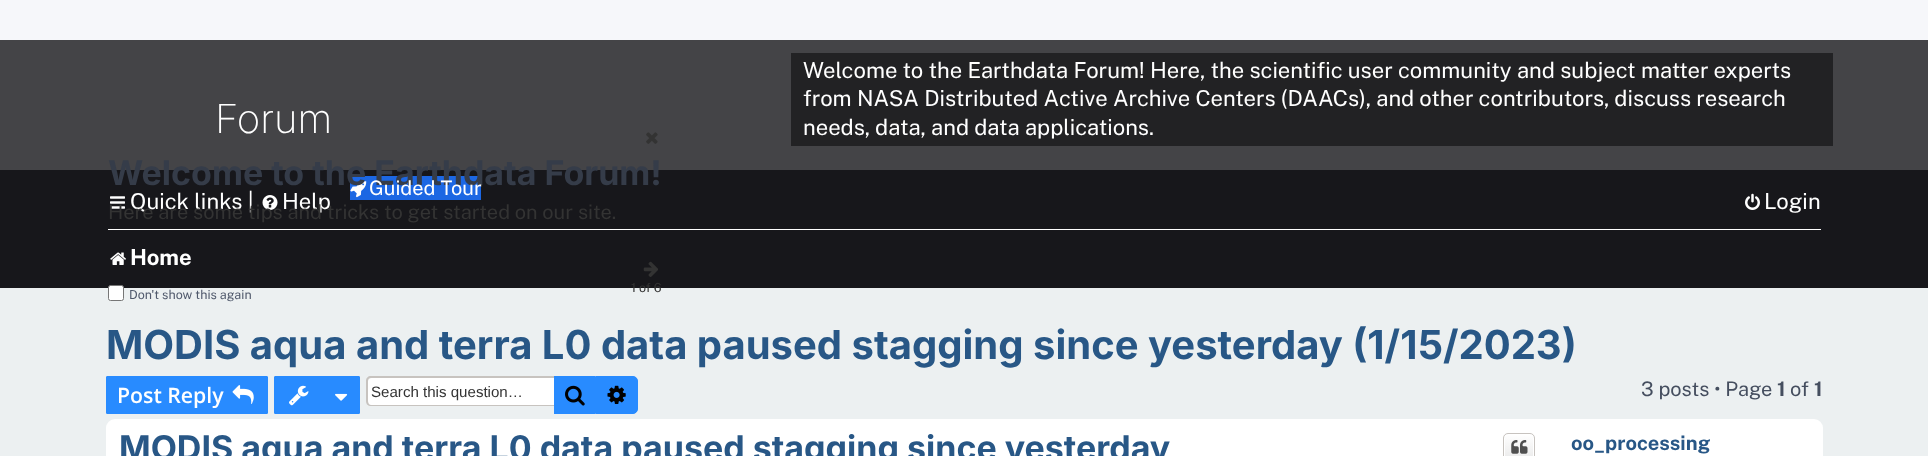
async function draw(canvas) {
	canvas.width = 1928;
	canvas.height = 456;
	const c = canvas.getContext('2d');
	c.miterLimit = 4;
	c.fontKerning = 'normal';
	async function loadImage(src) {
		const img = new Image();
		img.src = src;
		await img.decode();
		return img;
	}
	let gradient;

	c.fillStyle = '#f6f7fa';
	c.fillRect(0, 0, 1928, 456);
	c.fillStyle = '#ecf0f1';
	c.fillRect(0, 288, 1928, 168);
	c.fillStyle = '#444447';
	c.fillRect(0, 40, 1928, 130);
	c.font = '200 40px Inter';
	c.fillStyle = '#fff';
	c.fillText('Forum', 215, 133);
	c.fillStyle = '#222224';
	c.fillRect(791, 53, 1042, 93);
	c.font = '22px Public Sans';
	c.fillStyle = '#fff';
	for (const [text, x, y] of [
		['Welcome to the Earthdata Forum! Here, the scientific user community and subject matter experts', 803, 78],
		['from NASA Distributed Active Archive Centers (DAACs), and other contributors, discuss research', 803, 106],
		['needs, data, and data applications.', 803, 135],
	]) {
		c.fillText(text, x, y);
	}
	c.fillStyle = '#17171b';
	c.fillRect(0, 170, 1928, 118);
	c.drawImage(await loadImage('img1.png'), 646, 132, 12, 12);
	c.fillStyle = '#1c67e3';
	c.fillRect(350, 176, 131, 24);
	c.drawImage(await loadImage('img3.png'), 350, 181, 17, 17);
	c.font = 'bold 34px Inter';
	c.fillStyle = '#353c49';
	c.fillText('Welcome to the Earthdata Forum!', 108, 185);
	c.drawImage(await loadImage('img4.png'), 110, 196, 15, 13);
	c.font = '22px Public Sans';
	c.fillStyle = '#fff';
	c.fillText('Quick links |', 130, 209);
	c.drawImage(await loadImage('img5.png'), 262, 195, 16, 15);
	c.fillText('Help', 282, 209);
	c.font = '20px Public Sans';
	c.fillStyle = '#333';
	c.fillText('Here are some tips and tricks to get started on our site.', 108, 219);
	c.drawImage(await loadImage('img2.png'), 643, 261, 15, 16);
	c.font = '12.5px Public Sans';
	c.fillText('1 of 6', 631, 292);
	c.fillStyle = '#fff';
	c.beginPath();
	c.roundRect(108.5, 285.5, 15, 15, 2);
	c.fill();
	c.strokeStyle = '#767676';
	c.stroke();
	c.fillStyle = '#50596c';
	c.fillText('Don\'t show this again', 129, 299);
	c.font = '20px Public Sans';
	c.fillStyle = '#fff';
	c.fillText('Guided Tour', 369, 195);
	c.drawImage(await loadImage('img6.png'), 1745, 193, 15, 17);
	c.font = '22px Public Sans';
	c.fillText('Login', 1764, 209);
	c.fillRect(108, 229, 1713, 1);
	c.drawImage(await loadImage('img7.png'), 110, 252, 16, 13);
	c.font = 'bold 22px Public Sans';
	c.fillText('Home', 130, 265);
	c.font = 'bold 40px Inter';
	c.fillStyle = '#285786';
	c.fillText('MODIS aqua and terra L0 data paused stagging since yesterday (1/15/2023)', 106, 359);
	c.fillStyle = '#288bff';
	c.beginPath();
	c.roundRect(106.5, 376.5, 161, 37, 0.5);
	c.fill();
	c.strokeStyle = '#288bff';
	c.stroke();
	c.font = '600 21.25px Open Sans';
	c.fillStyle = '#fff';
	c.fillText('Post Reply', 117, 403);
	c.drawImage(await loadImage('img8.png'), 232, 385, 22, 19);
	c.fillStyle = '#288bff';
	c.beginPath();
	c.roundRect(274.5, 376.5, 85, 37, 0.5);
	c.fill();
	c.stroke();
	c.drawImage(await loadImage('img9.png'), 289, 385, 20, 21);
	c.drawImage(await loadImage('img10.png'), 335, 393, 13, 8);
	c.fillStyle = '#fff';
	c.beginPath();
	c.roundRect(368, 378, 186, 27, [4, 0, 0, 4]);
	c.fill();
	c.fillStyle = '#c7c3bf';
	c.beginPath();
	c.moveTo(371, 376);
	c.lineTo(554, 376);
	c.lineTo(554, 406);
	c.lineTo(371, 406);
	c.bezierCurveTo(368, 406, 366, 404, 366, 401);
	c.lineTo(366, 381);
	c.bezierCurveTo(366, 378, 368, 376, 371, 376);
	c.closePath();
	c.moveTo(371, 378);
	c.lineTo(554, 378);
	c.lineTo(554, 405);
	c.lineTo(371, 405);
	c.bezierCurveTo(369, 405, 368, 403, 368, 401);
	c.lineTo(368, 381);
	c.bezierCurveTo(368, 379, 369, 378, 371, 378);
	c.closePath();
	c.fill('evenodd');
	c.font = '15.1px Liberation Sans';
	c.fillStyle = '#333';
	c.fillText('Search this question…', 371, 397);
	c.fillStyle = '#288bff';
	c.fillRect(554, 376, 41, 38);
	c.drawImage(await loadImage('img11.png'), 565, 385, 20, 21);
	c.beginPath();
	c.roundRect(595.5, 376.5, 42, 37, [0, 4.5, 4.5, 0]);
	c.fill();
	c.stroke();
	c.drawImage(await loadImage('img12.png'), 607, 385, 19, 19);
	c.font = '20px Public Sans';
	c.fillStyle = '#454e5f';
	c.fillText('3 posts • Page', 1641, 396);
	c.font = 'bold 20px Public Sans';
	c.fillText('1', 1777, 396);
	c.font = '20px Public Sans';
	c.fillText('of', 1790, 396);
	c.font = 'bold 20px Public Sans';
	c.fillText('1', 1814, 396);
	c.fillStyle = '#fff';
	c.beginPath();
	c.roundRect(106, 419, 1717, 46, 9);
	c.fill();
	c.font = 'bold 34px Inter';
	c.fillStyle = '#285786';
	c.fillText('MODIS aqua and terra L0 data paused stagging since yesterday', 119, 460);
	c.save();
	c.beginPath();
	c.roundRect(1503, 433, 32, 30, 5);
	c.clip();
	gradient = c.createLinearGradient(1519, 434, 1519, 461);
	gradient.addColorStop(0, '#fff');
	gradient.addColorStop(1, '#e9e9e9');
	c.fillStyle = gradient;
	c.fillRect(1503, 434, 32, 22);
	c.restore();
	c.beginPath();
	c.roundRect(1504.5, 434.5, 29, 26, 3.5);
	c.strokeStyle = '#fff';
	c.stroke();
	c.beginPath();
	c.roundRect(1503.5, 433.5, 31, 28, 4.5);
	c.strokeStyle = '#c7c3bf';
	c.stroke();
	c.drawImage(await loadImage('img13.png'), 1511, 440, 17, 14);
	c.font = 'bold 20px Public Sans';
	c.fillText('oo_processing', 1571, 450);
}

draw(document.querySelector('canvas'));
